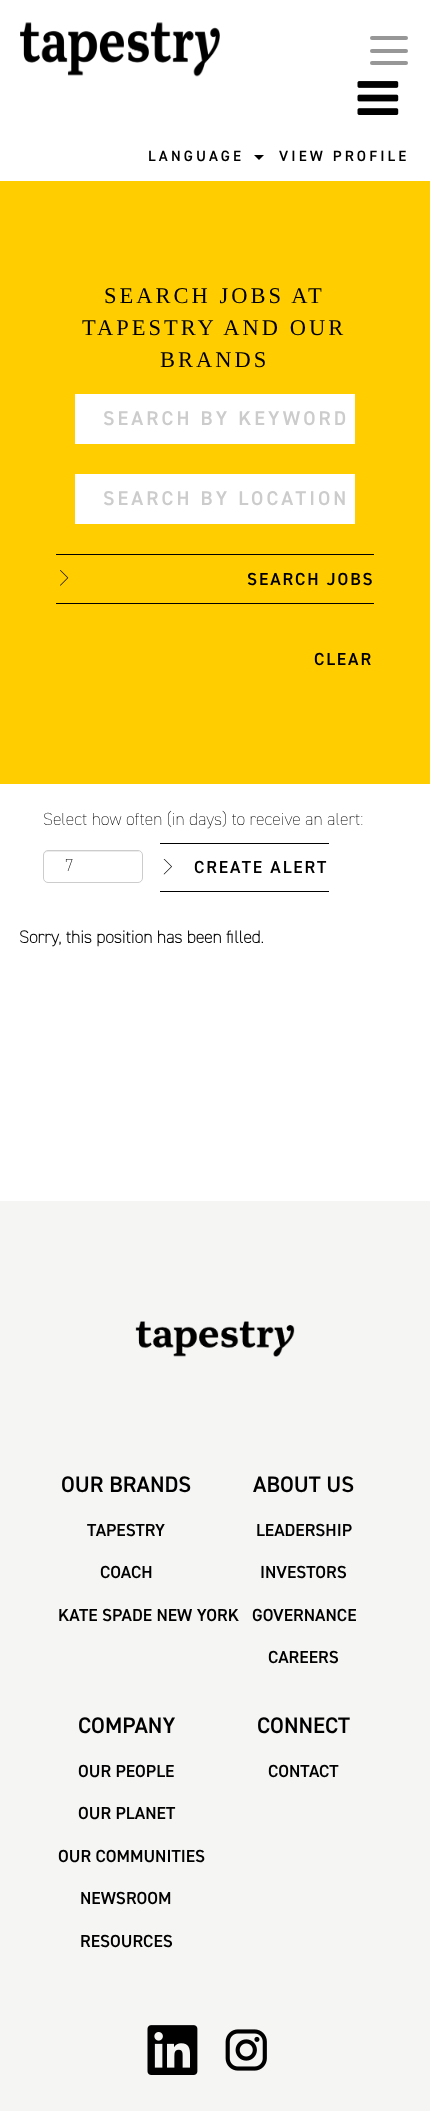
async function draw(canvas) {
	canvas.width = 430;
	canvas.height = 2111;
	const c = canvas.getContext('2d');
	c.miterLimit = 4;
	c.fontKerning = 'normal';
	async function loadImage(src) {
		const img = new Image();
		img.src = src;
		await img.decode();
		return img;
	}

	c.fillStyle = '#fff';
	c.fillRect(0, 0, 430, 2111);
	c.drawImage(await loadImage('img1.png'), 20, 22, 200, 55);
	c.fillStyle = '#979797';
	c.beginPath();
	c.roundRect(370, 36, 38, 4, 2);
	c.fill();
	c.beginPath();
	c.roundRect(370, 49, 38, 4, 2);
	c.fill();
	c.beginPath();
	c.roundRect(370, 61, 38, 4, 2);
	c.fill();
	c.drawImage(await loadImage('img2.png'), 357, 81, 42, 34);
	c.letterSpacing = '3.1px';
	c.font = '600 15px "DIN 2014"';
	c.fillStyle = '#000';
	c.fillText('LANGUAGE', 148, 161);
	c.beginPath();
	c.moveTo(254, 155);
	c.lineTo(264, 155);
	c.lineTo(259, 160);
	c.closePath();
	c.fill();
	c.fillText('VIEW PROFILE', 279, 161);
	c.fillStyle = '#ffcd00';
	c.fillRect(0, 181, 430, 603);
	c.letterSpacing = '3px';
	c.font = '22.5px Liberation Serif';
	c.fillStyle = '#000';
	for (const [text, x, y] of [
		['SEARCH JOBS AT', 104, 303],
		['TAPESTRY AND OUR', 82, 335],
		['BRANDS', 160, 367],
	]) {
		c.fillText(text, x, y);
	}
	c.fillStyle = '#fff';
	c.fillRect(75, 394, 280, 50);
	c.letterSpacing = '3.1px';
	c.font = '600 20px "DIN 2014"';
	c.fillStyle = '#ccc';
	c.fillText('SEARCH BY KEYWORD', 103, 425);
	c.fillStyle = '#fff';
	c.fillRect(75, 474, 280, 50);
	c.fillStyle = '#ccc';
	c.fillText('SEARCH BY LOCATION', 103, 505);
	c.drawImage(await loadImage('img3.png'), 60, 570, 9, 16);
	c.fillStyle = '#000';
	c.fillRect(56, 554, 318, 1);
	c.fillRect(56, 603, 318, 1);
	c.letterSpacing = '1.9px';
	c.font = '600 17.5px "DIN 2014"';
	c.fillText('SEARCH JOBS', 247, 585);
	c.fillText('CLEAR', 314, 665);
	c.letterSpacing = '0px';
	c.font = '200 17.5px "DIN 2014"';
	c.fillText('Select how often (in days) to receive an alert:', 43, 825);
	c.fillStyle = '#ececec';
	c.beginPath();
	c.moveTo(48, 852);
	c.lineTo(138, 852);
	c.bezierCurveTo(140, 852, 141, 854, 141, 856);
	c.bezierCurveTo(141, 847, 127, 851, 122, 851);
	c.lineTo(63, 851);
	c.bezierCurveTo(58, 851, 44, 847, 44, 856);
	c.bezierCurveTo(44, 854, 45, 852, 48, 852);
	c.closePath();
	c.fill();
	c.beginPath();
	c.roundRect(43.5, 850.5, 99, 32, 4.5);
	c.strokeStyle = '#ccc';
	c.stroke();
	c.fillStyle = '#000';
	c.fillText('7', 65, 871);
	c.drawImage(await loadImage('img4.png'), 163, 859, 9, 16);
	c.fillRect(160, 843, 169, 1);
	c.fillRect(160, 891, 169, 1);
	c.letterSpacing = '1.9px';
	c.font = '600 17.5px "DIN 2014"';
	c.fillText('CREATE ALERT', 194, 873);
	c.letterSpacing = '0px';
	c.font = 'bold 17.5px "DIN 2014"';
	c.fillText('Sorry, this position has been filled.', 19, 943);
	c.fillStyle = '#f5f5f4';
	c.fillRect(0, 1201, 430, 910);
	c.drawImage(await loadImage('img5.png'), 135, 1321, 160, 36);
	c.font = '600 22.5px "DIN 2014"';
	c.fillStyle = '#000';
	c.fillText('OUR BRANDS', 61, 1492);
	c.font = '600 17.5px "DIN 2014"';
	for (const [text, x, y] of [
		['TAPESTRY', 87, 1536],
		['COACH', 100, 1578],
		['KATE SPADE NEW YORK', 58, 1621],
	]) {
		c.fillText(text, x, y);
	}
	c.font = '600 22.5px "DIN 2014"';
	c.fillText('ABOUT US', 253, 1492);
	c.font = '600 17.5px "DIN 2014"';
	for (const [text, x, y] of [
		['LEADERSHIP', 256, 1536],
		['INVESTORS', 260, 1578],
		['GOVERNANCE', 252, 1621],
		['CAREERS', 268, 1663],
	]) {
		c.fillText(text, x, y);
	}
	c.font = '600 22.5px "DIN 2014"';
	c.fillText('COMPANY', 78, 1733);
	c.font = '600 17.5px "DIN 2014"';
	for (const [text, x, y] of [
		['OUR PEOPLE', 78, 1777],
		['OUR PLANET', 78, 1819],
		['OUR COMMUNITIES', 58, 1862],
		['NEWSROOM', 80, 1904],
		['RESOURCES', 80, 1947],
	]) {
		c.fillText(text, x, y);
	}
	c.font = '600 22.5px "DIN 2014"';
	c.fillText('CONNECT', 257, 1733);
	c.font = '600 17.5px "DIN 2014"';
	c.fillText('CONTACT', 268, 1777);
	c.drawImage(await loadImage('img6.png'), 147, 2025, 51, 50);
	c.drawImage(await loadImage('img7.png'), 225, 2029, 42, 42);
}

draw(document.querySelector('canvas'));
